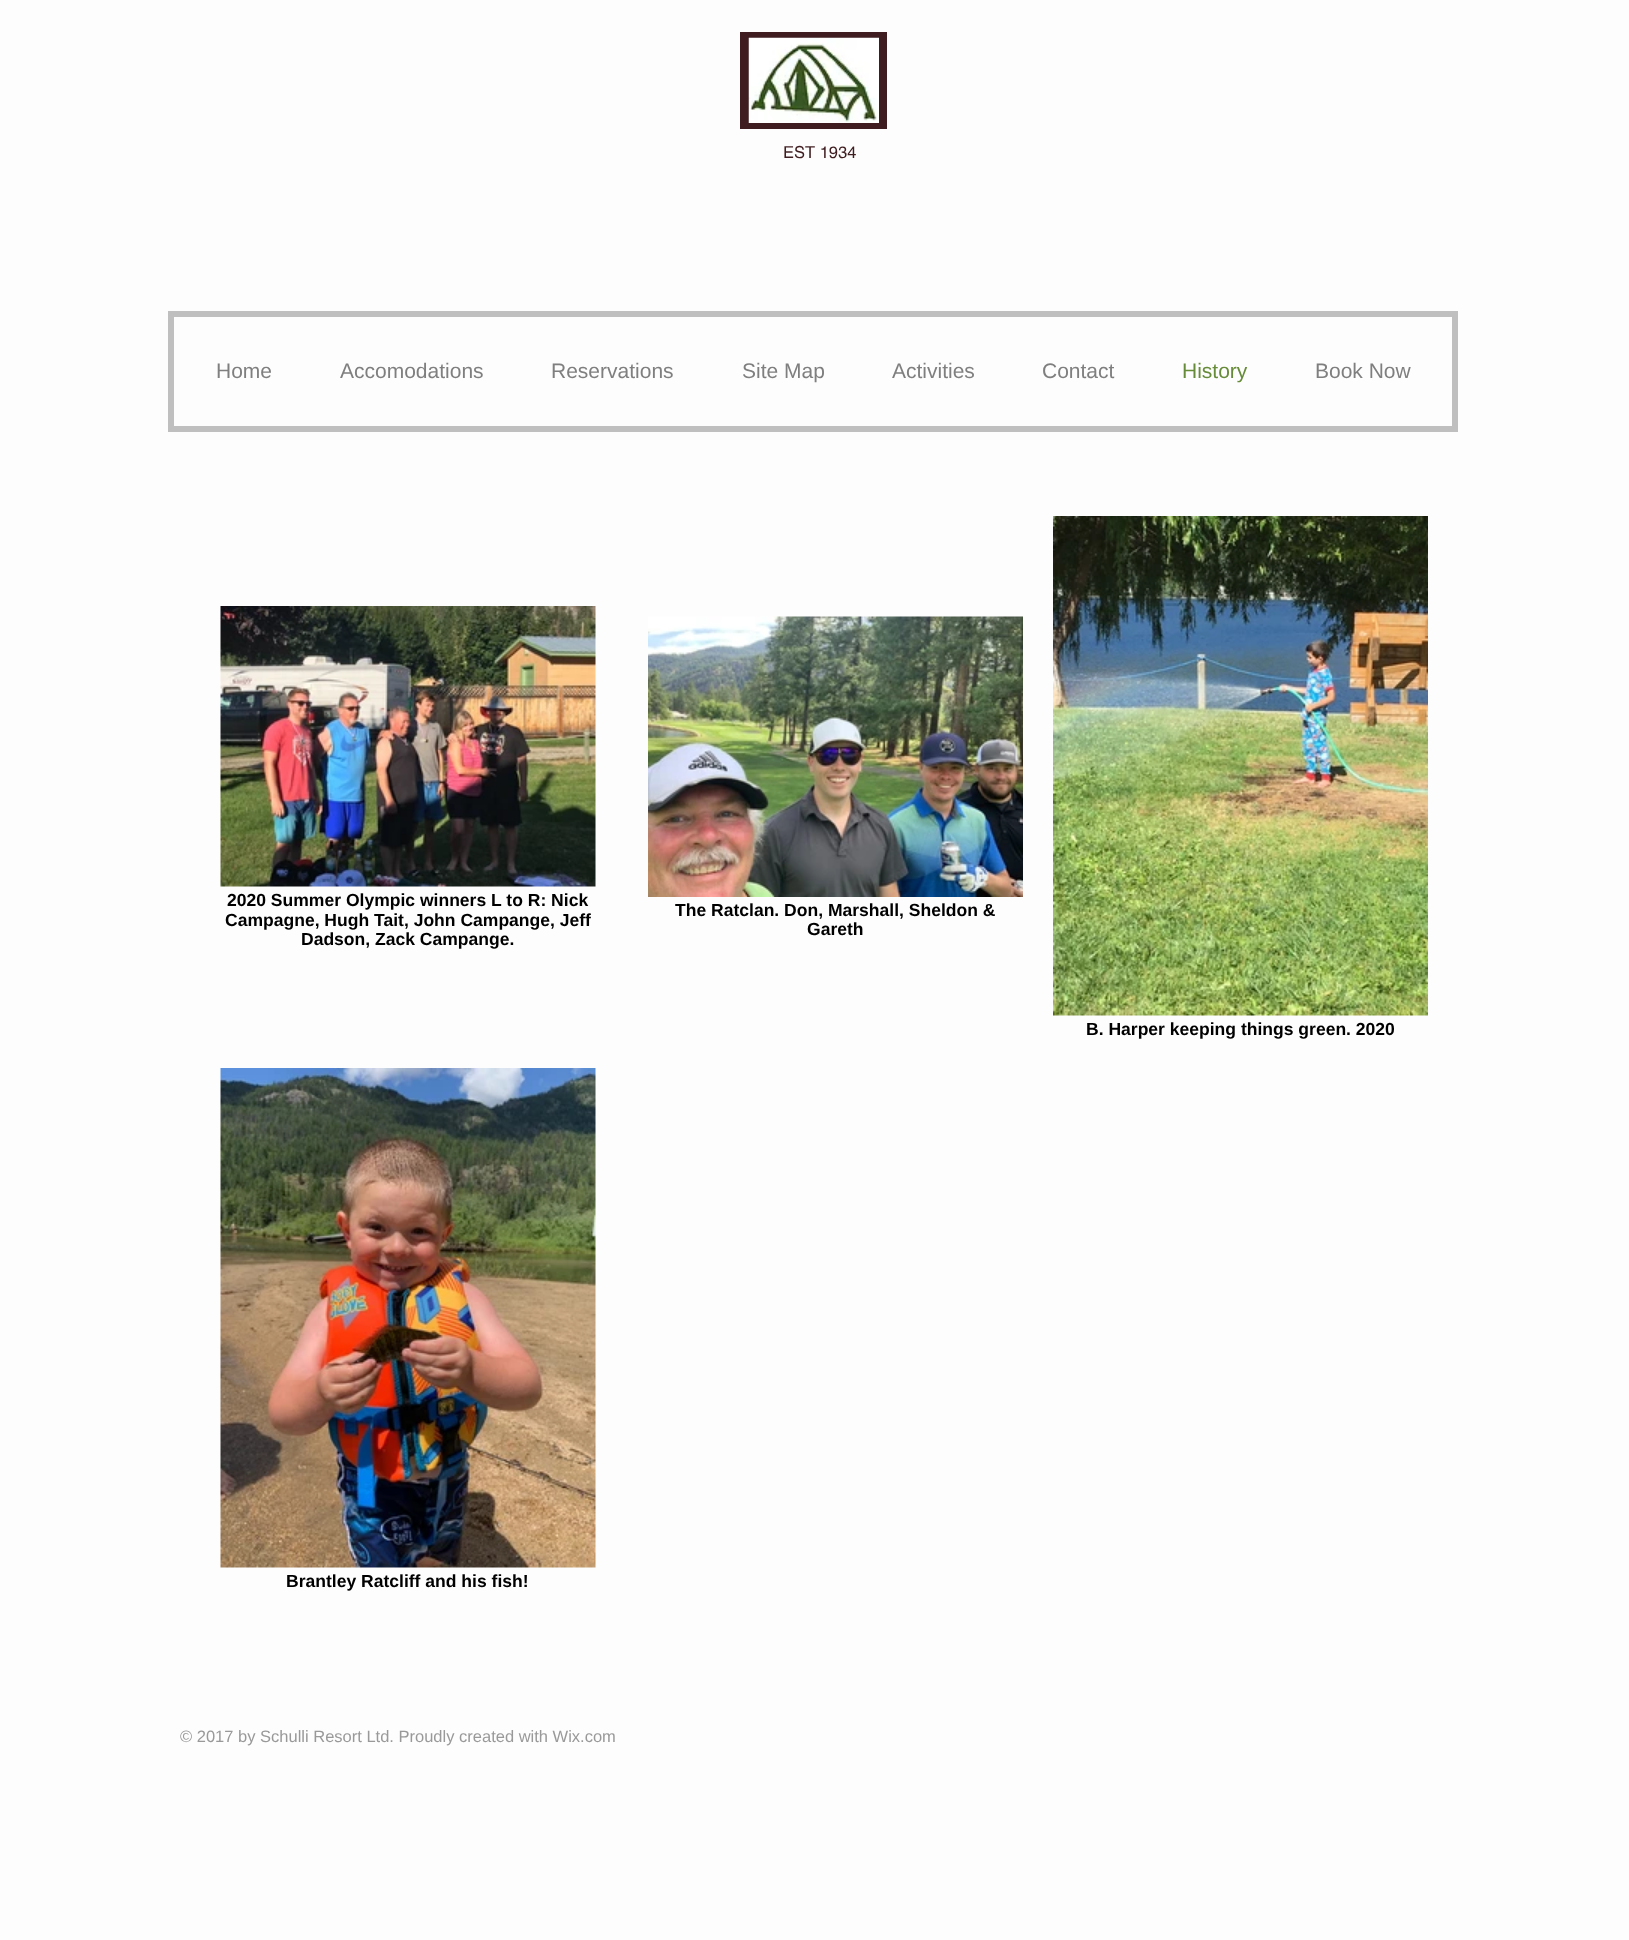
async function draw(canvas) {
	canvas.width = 1629;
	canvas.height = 1940;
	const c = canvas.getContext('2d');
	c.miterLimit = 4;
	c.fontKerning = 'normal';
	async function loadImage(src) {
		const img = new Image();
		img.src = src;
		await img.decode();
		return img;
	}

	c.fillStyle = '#fefdfd';
	c.fillRect(0, 0, 1629, 1940);
	c.fillStyle = '#3e1c1f';
	c.fillRect(740, 32, 147, 97);
	c.drawImage(await loadImage('img1.png'), 748, 37, 131, 86);
	c.font = '16.5px helvetica';
	c.fillText('EST 1934', 783, 158);
	c.strokeStyle = '#bfbfbf';
	c.lineWidth = 6;
	c.strokeRect(171, 314, 1284, 115);
	c.font = '21px Liberation Sans';
	c.fillStyle = '#7f7f7f';
	for (const [text, x, y] of [
		['Home', 216, 378],
		['Accomodations', 340, 378],
		['Reservations', 551, 378],
		['Site Map', 742, 378],
		['Activities', 892, 378],
		['Contact', 1042, 378],
	]) {
		c.fillText(text, x, y);
	}
	c.fillStyle = '#678c39';
	c.fillText('History', 1182, 378);
	c.fillStyle = '#7f7f7f';
	c.fillText('Book Now', 1315, 378);
	c.drawImage(await loadImage('img2.png'), 220, 606, 376, 281);
	c.font = 'bold 17.55px Liberation Sans';
	c.fillStyle = '#000';
	for (const [text, x, y] of [
		['2020 Summer Olympic winners L to R: Nick', 227, 906],
		['Campagne, Hugh Tait, John Campange, Jeff', 225, 926],
		['Dadson, Zack Campange.', 301, 945],
	]) {
		c.fillText(text, x, y);
	}
	c.drawImage(await loadImage('img3.png'), 648, 616, 375, 281);
	c.fillText('The Ratclan. Don, Marshall, Sheldon &', 675, 916);
	c.fillText('Gareth', 807, 935);
	c.drawImage(await loadImage('img4.png'), 1053, 516, 375, 500);
	c.fillText('B. Harper keeping things green. 2020', 1086, 1035);
	c.drawImage(await loadImage('img5.png'), 220, 1068, 376, 500);
	c.fillText('Brantley Ratcliff and his fish!', 286, 1587);
	c.font = '16.5px Liberation Sans';
	c.fillStyle = '#999';
	c.fillText('© 2017 by Schulli Resort Ltd. Proudly created with Wix.com', 180, 1742);
}

draw(document.querySelector('canvas'));
